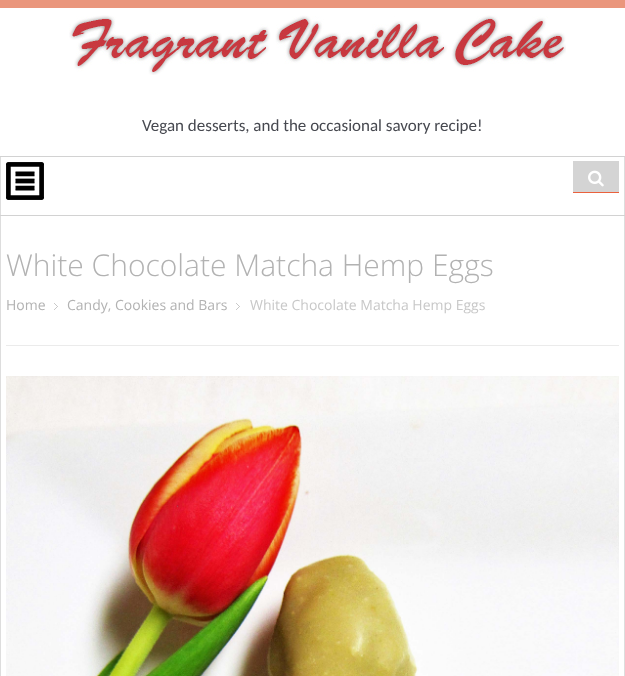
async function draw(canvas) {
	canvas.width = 625;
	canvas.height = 676;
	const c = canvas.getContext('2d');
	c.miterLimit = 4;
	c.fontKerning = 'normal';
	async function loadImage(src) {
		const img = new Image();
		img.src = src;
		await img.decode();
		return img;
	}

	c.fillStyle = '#fff';
	c.fillRect(0, 0, 625, 676);
	c.strokeStyle = '#ddd';
	c.strokeRect(0.5, 0.5, 624, 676);
	c.fillRect(0, 8, 625, 148);
	c.fillStyle = '#ea967c';
	c.fillRect(0, 0, 625, 8);
	c.drawImage(await loadImage('img1.png'), 69, 15, 497, 60);
	c.font = '17px Carlito';
	c.fillStyle = '#474950';
	c.fillText('Vegan desserts, and the occasional savory recipe!', 142, 131);
	c.fillStyle = '#d2d2d2';
	c.fillRect(0, 156, 625, 1);
	c.fillRect(0, 215, 625, 1);
	c.drawImage(await loadImage('img2.png'), 6, 162, 38, 38);
	c.drawImage(await loadImage('img3.png'), 573, 192, 46, 1);
	c.fillStyle = '#d4d4d4';
	c.fillRect(573, 161, 46, 31);
	c.drawImage(await loadImage('img4.png'), 588, 170, 16, 17);
	c.fillStyle = '#ebebeb';
	c.fillRect(6, 345, 613, 1);
	c.font = '300 30px Open Sans';
	c.fillStyle = '#b2b2b2';
	c.fillText('White Chocolate Matcha Hemp Eggs', 6, 276);
	c.font = '14px Open Sans';
	c.fillText('Home', 6, 310);
	c.drawImage(await loadImage('img5.png'), 54, 303, 4, 7);
	c.fillText('Candy, Cookies and Bars', 67, 310);
	c.drawImage(await loadImage('img5.png'), 236, 303, 4, 7);
	c.fillStyle = '#c8c8c8';
	c.fillText('White Chocolate Matcha Hemp Eggs', 250, 310);
	c.drawImage(await loadImage('img6.png'), 6, 376, 613, 300);
}

draw(document.querySelector('canvas'));
